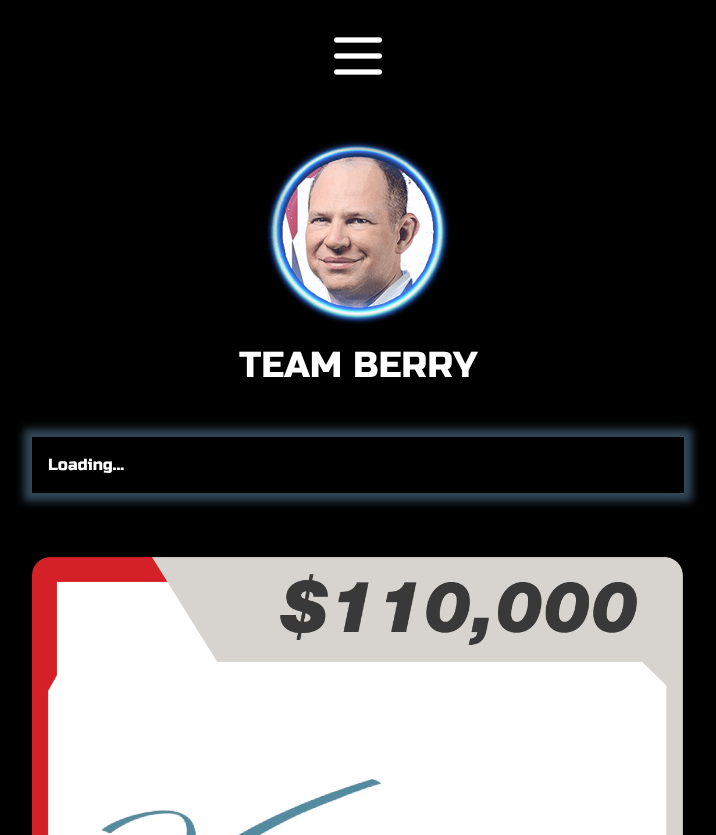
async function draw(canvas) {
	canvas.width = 716;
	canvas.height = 835;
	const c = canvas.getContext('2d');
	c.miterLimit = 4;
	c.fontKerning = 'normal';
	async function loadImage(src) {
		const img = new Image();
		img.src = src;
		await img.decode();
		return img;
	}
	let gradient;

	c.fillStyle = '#000';
	c.fillRect(0, 0, 716, 835);
	c.drawImage(await loadImage('img2.png'), 264, 139, 188, 187);
	gradient = c.createLinearGradient(358, 0, 358, 152);
	gradient.addColorStop(0.5, '#000000cc');
	gradient.addColorStop(1, '#00000000');
	c.fillStyle = gradient;
	c.fillRect(329, 142, 55, 8);
	c.drawImage(await loadImage('img1.png'), 334, 37, 48, 38);
	c.font = '36px Russo One';
	c.fillStyle = '#fff';
	c.fillText('TEAM BERRY', 239, 377);
	c.save();
	c.beginPath();
	c.moveTo(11, 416);
	c.lineTo(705, 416);
	c.lineTo(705, 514);
	c.lineTo(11, 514);
	c.closePath();
	c.moveTo(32, 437);
	c.lineTo(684, 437);
	c.lineTo(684, 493);
	c.lineTo(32, 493);
	c.closePath();
	c.clip('evenodd');
	c.fillStyle = '#7eb7e066';
	c.filter = 'blur(4px)';
	c.beginPath();
	c.rect(24, 429, 668, 72);
	c.fill();
	c.filter = 'none';
	c.restore();
	c.font = '16px Russo One';
	c.fillText('Loading...', 48, 470);
	c.drawImage(await loadImage('img3.png'), 32, 557, 651, 278);
}

draw(document.querySelector('canvas'));
